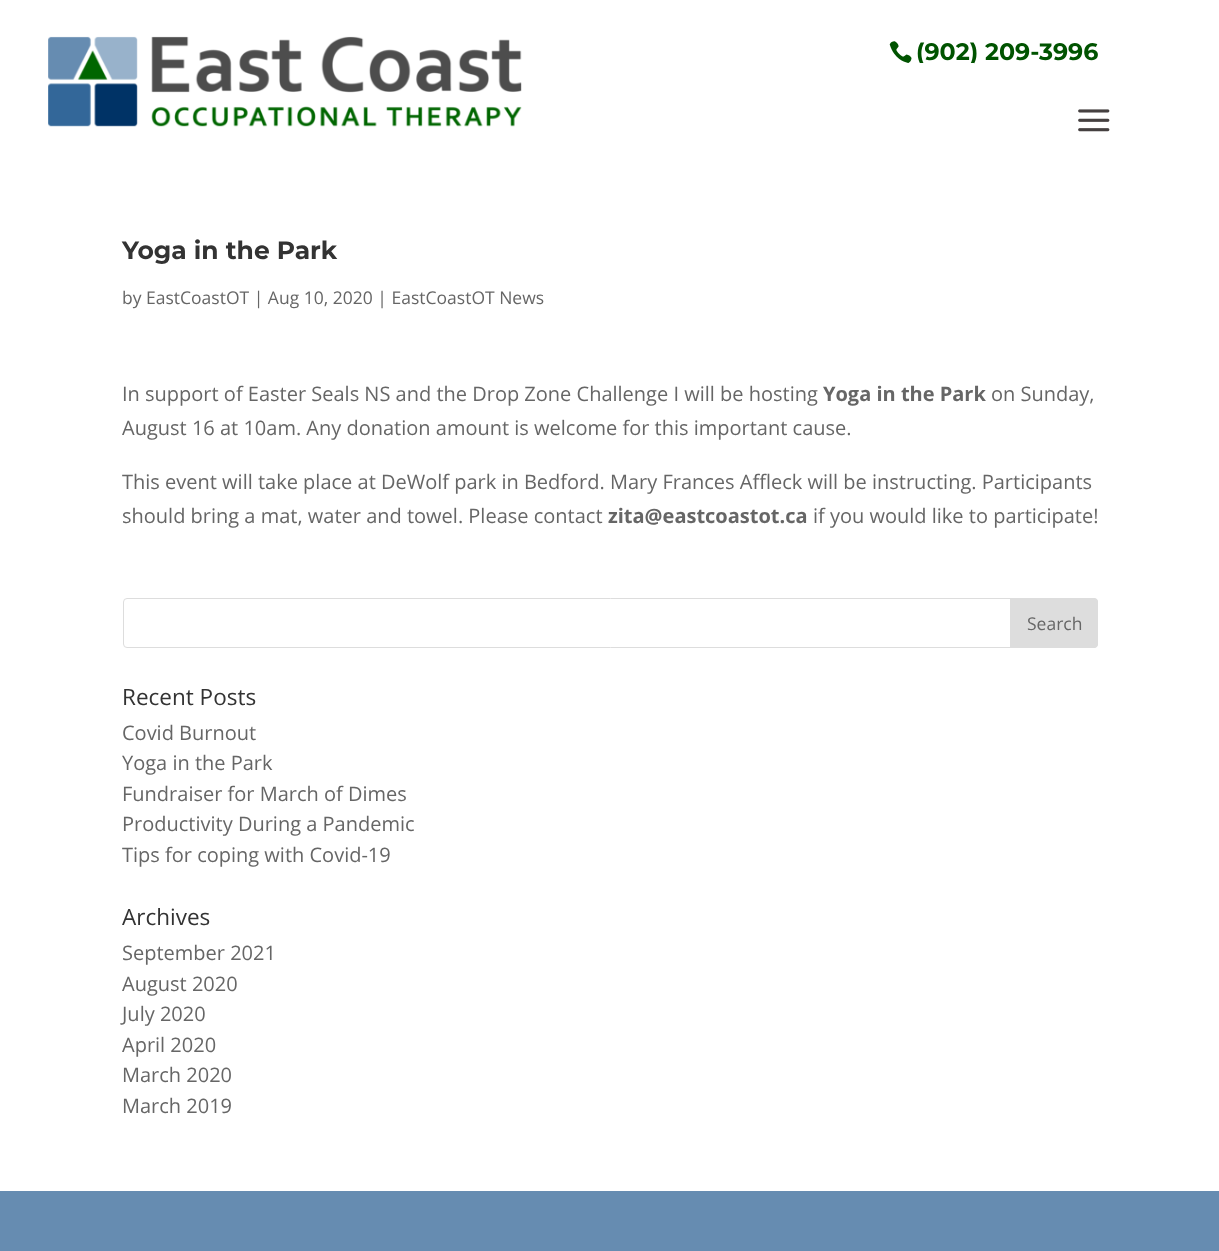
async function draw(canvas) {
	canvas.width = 1219;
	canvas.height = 1251;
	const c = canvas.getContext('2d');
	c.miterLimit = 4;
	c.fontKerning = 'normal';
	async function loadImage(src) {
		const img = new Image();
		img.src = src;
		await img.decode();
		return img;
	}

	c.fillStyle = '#fff';
	c.fillRect(0, 0, 1219, 1251);
	c.font = 'bold 23.75px Montserrat';
	c.fillStyle = '#005300';
	c.fillText('(902) 209-3996', 916, 60);
	c.fillStyle = '#fff';
	c.fillRect(919, 63, 55, 2);
	c.drawImage(await loadImage('img1.png'), 48, 36, 474, 91);
	c.drawImage(await loadImage('img2.png'), 1078, 109, 32, 23);
	c.drawImage(await loadImage('img3.png'), 889, 41, 23, 22);
	c.font = 'bold 25px Montserrat';
	c.fillStyle = '#333';
	c.fillText('Yoga in the Park', 122, 259);
	c.font = '17.5px Open Sans';
	c.fillStyle = '#666';
	c.fillText('by EastCoastOT | Aug 10, 2020 | EastCoastOT News', 122, 304);
	c.font = '20px Open Sans';
	c.fillText('In support of Easter Seals NS and the Drop Zone Challenge I will be hosting', 122, 401);
	c.font = 'bold 20px Open Sans';
	c.fillText('Yoga in the Park', 823, 401);
	c.font = '20px Open Sans';
	for (const [text, x, y] of [
		['on Sunday,', 991, 401],
		['August 16 at 10am. Any donation amount is welcome for this important cause.', 122, 435],
		['This event will take place at DeWolf park in Bedford. Mary Frances Affleck will be instructing. Participants', 122, 489],
		['should bring a mat, water and towel. Please contact', 122, 523],
	]) {
		c.fillText(text, x, y);
	}
	c.font = 'bold 20px Open Sans';
	c.fillText('zita@eastcoastot.ca', 608, 523);
	c.font = '20px Open Sans';
	c.fillText('if you would like to participate!', 813, 523);
	c.beginPath();
	c.roundRect(123.5, 598.5, 974, 49, 3.5);
	c.strokeStyle = '#ddd';
	c.stroke();
	c.fillStyle = '#ddd';
	c.beginPath();
	c.roundRect(1010.5, 598.5, 87, 49, [0, 3.5, 3.5, 0]);
	c.fill();
	c.stroke();
	c.font = '17.5px Open Sans';
	c.fillStyle = '#666';
	c.fillText('Search', 1027, 630);
	c.font = '22.5px Open Sans';
	c.fillStyle = '#333';
	c.fillText('Recent Posts', 122, 705);
	c.font = '20px Open Sans';
	c.fillStyle = '#666';
	for (const [text, x, y] of [
		['Covid Burnout', 122, 740],
		['Yoga in the Park', 122, 770],
		['Fundraiser for March of Dimes', 122, 801],
		['Productivity During a Pandemic', 122, 831],
		['Tips for coping with Covid-19', 122, 862],
	]) {
		c.fillText(text, x, y);
	}
	c.font = '22.5px Open Sans';
	c.fillStyle = '#333';
	c.fillText('Archives', 122, 925);
	c.font = '20px Open Sans';
	c.fillStyle = '#666';
	for (const [text, x, y] of [
		['September 2021', 122, 960],
		['August 2020', 122, 991],
		['July 2020', 122, 1021],
		['April 2020', 122, 1052],
		['March 2020', 122, 1082],
		['March 2019', 122, 1113],
	]) {
		c.fillText(text, x, y);
	}
	c.fillStyle = '#668cb1';
	c.fillRect(0, 1191, 1219, 60);
}

draw(document.querySelector('canvas'));
